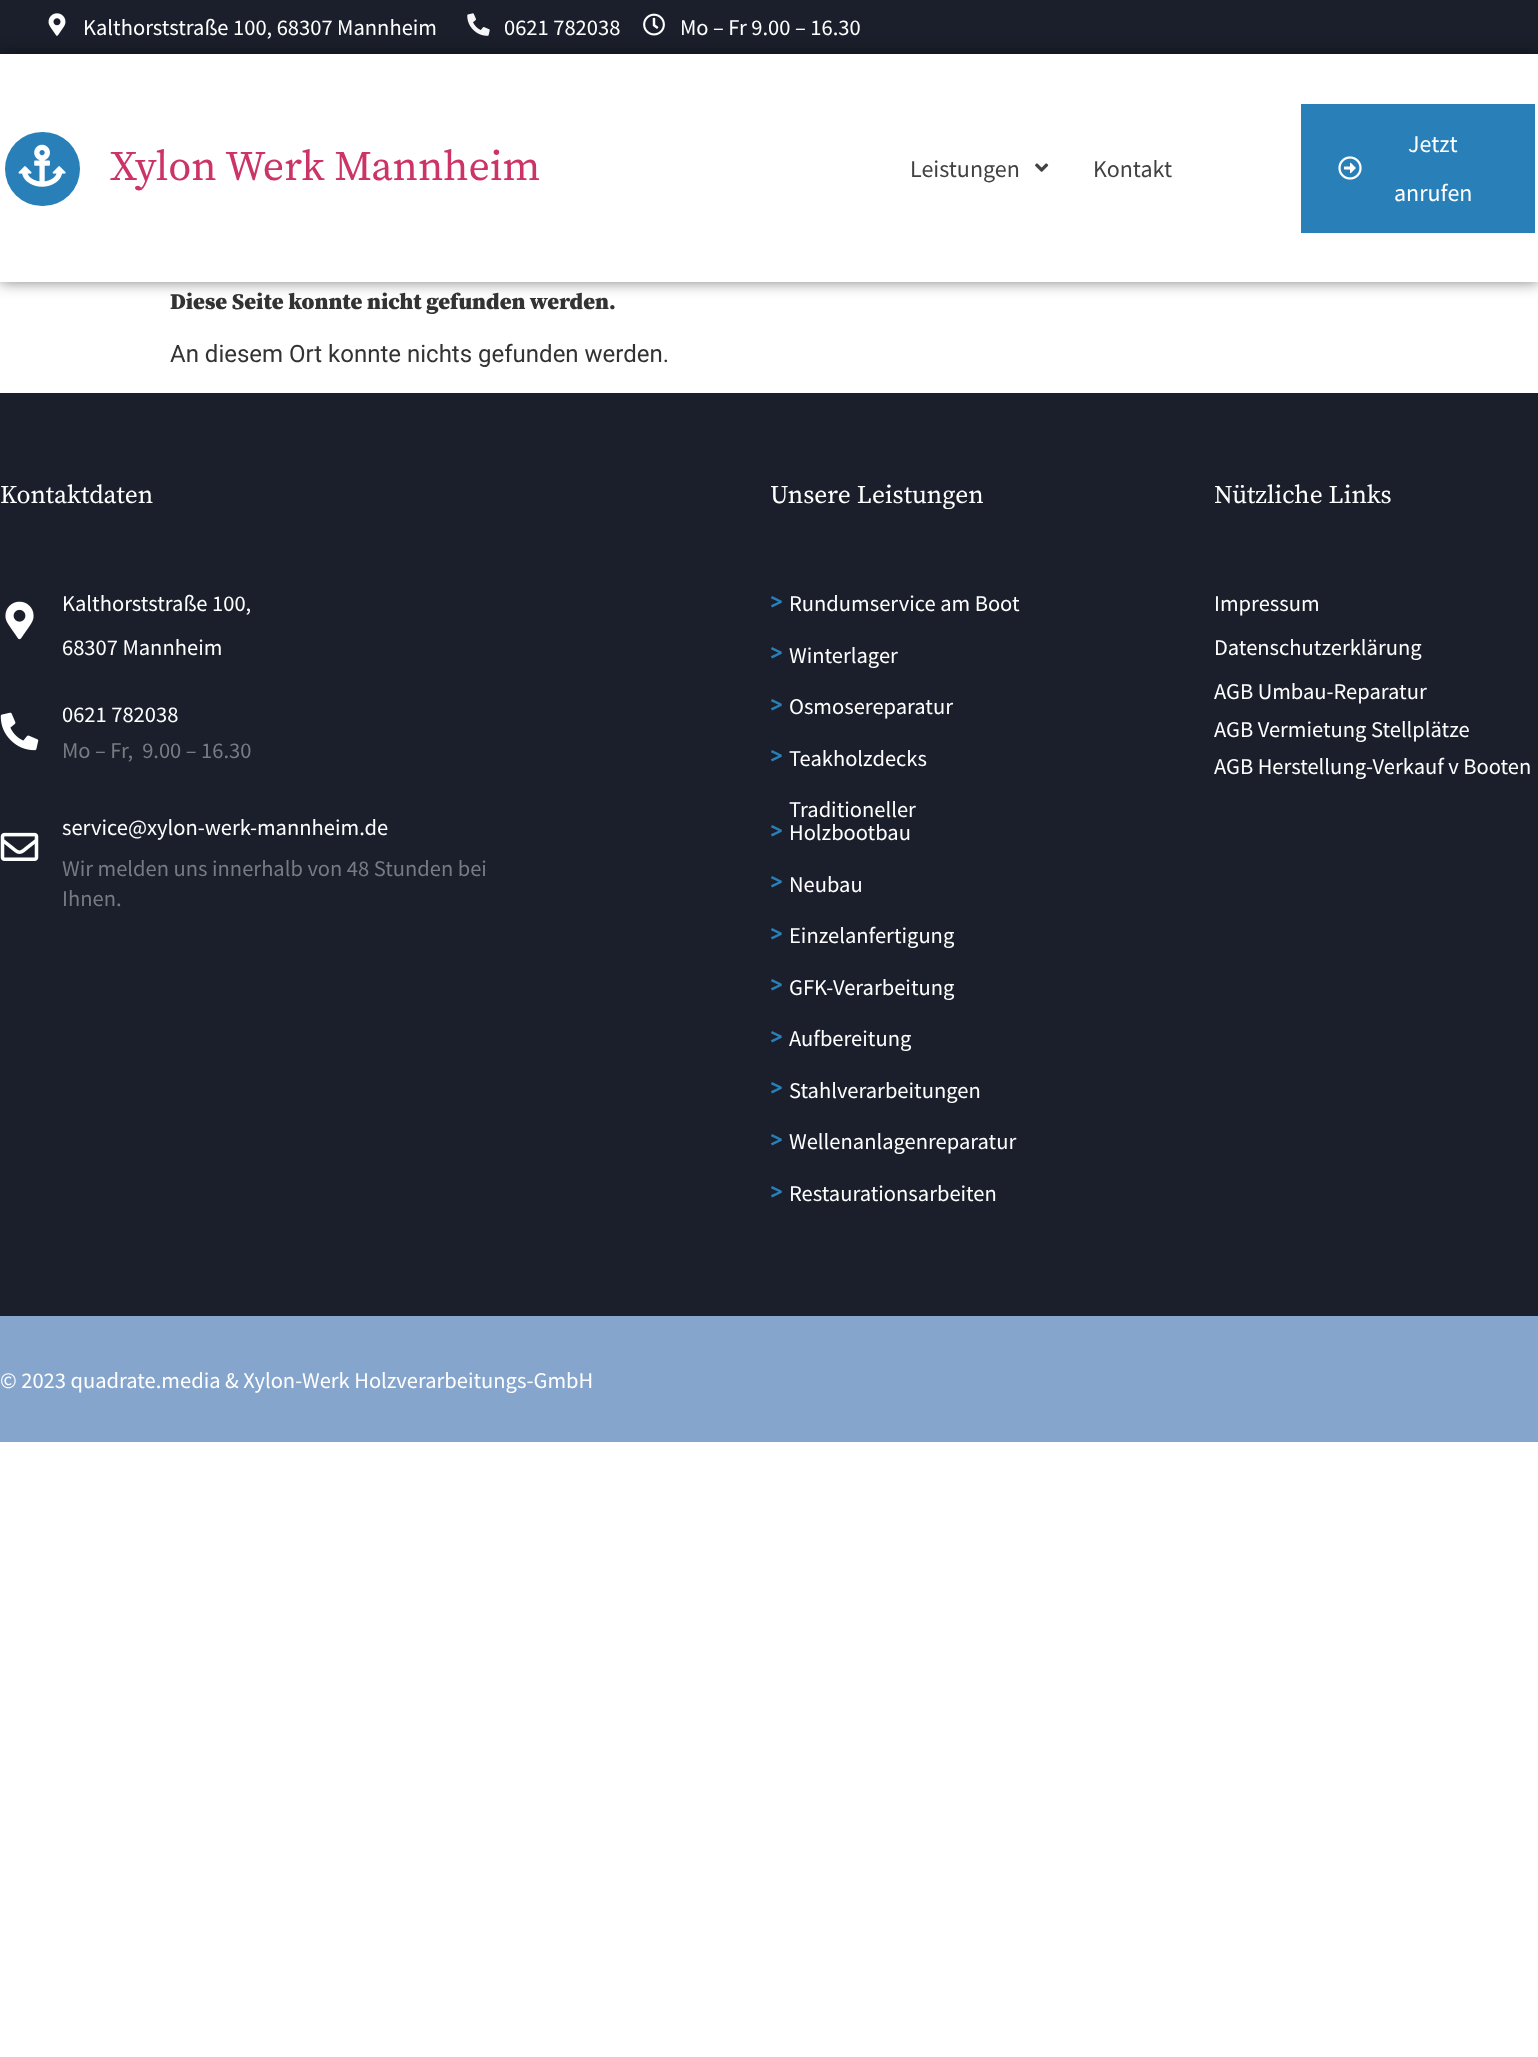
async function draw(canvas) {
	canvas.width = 1538;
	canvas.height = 2057;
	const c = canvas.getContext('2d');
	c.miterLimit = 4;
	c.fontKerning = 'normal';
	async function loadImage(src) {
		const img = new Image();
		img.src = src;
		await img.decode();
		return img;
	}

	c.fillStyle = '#fff';
	c.fillRect(0, 0, 1538, 2057);
	c.fillStyle = '#1a1f2b';
	c.fillRect(0, 0, 1538, 54);
	c.drawImage(await loadImage('img1.png'), 48, 13, 18, 23);
	c.font = '22.5px Source Sans Pro';
	c.fillStyle = '#fff';
	c.fillText('Kalthorststraße 100, 68307 Mannheim', 83, 35);
	c.drawImage(await loadImage('img2.png'), 467, 13, 23, 23);
	c.fillText('0621 782038', 504, 35);
	c.drawImage(await loadImage('img3.png'), 643, 13, 22, 23);
	c.fillText('Mo – Fr 9.00 – 16.30', 680, 35);
	c.save();
	c.beginPath();
	c.moveTo(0, 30);
	c.lineTo(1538, 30);
	c.lineTo(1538, 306);
	c.lineTo(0, 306);
	c.closePath();
	c.moveTo(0, 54);
	c.lineTo(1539, 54);
	c.lineTo(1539, 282);
	c.lineTo(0, 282);
	c.closePath();
	c.clip('evenodd');
	c.fillStyle = '#00000080';
	c.filter = 'blur(7.5px)';
	c.beginPath();
	c.rect(0, 54, 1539, 228);
	c.fill();
	c.filter = 'none';
	c.restore();
	c.fillStyle = '#2980b9';
	c.beginPath();
	c.roundRect(5, 132, 75, 74, 37);
	c.fill();
	c.drawImage(await loadImage('img4.png'), 18, 144, 48, 43);
	c.font = '42px Source Serif Pro';
	c.fillStyle = '#c36';
	c.fillText('Xylon Werk Mannheim', 110, 180);
	c.font = '24px Source Sans Pro';
	c.fillStyle = '#424242';
	c.fillText('Leistungen', 910, 177);
	c.drawImage(await loadImage('img5.png'), 1035, 163, 14, 9);
	c.fillText('Kontakt', 1093, 177);
	c.fillStyle = '#2980b9';
	c.fillRect(1301, 104, 234, 129);
	c.drawImage(await loadImage('img6.png'), 1338, 156, 24, 24);
	c.fillStyle = '#fff';
	c.fillText('Jetzt', 1408, 152);
	c.fillText('anrufen', 1394, 201);
	c.font = '900 22.5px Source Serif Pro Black';
	c.fillStyle = '#333';
	c.fillText('Diese Seite konnte nicht gefunden werden.', 170, 309);
	c.font = '24px Roboto';
	c.fillText('An diesem Ort konnte nichts gefunden werden.', 170, 362);
	c.fillStyle = '#1a1f2b';
	c.fillRect(0, 393, 1538, 923);
	c.font = '25.5px Source Serif Pro';
	c.fillStyle = '#fff';
	c.fillText('Kontaktdaten', 0, 503);
	c.drawImage(await loadImage('img7.png'), 5, 601, 29, 39);
	c.font = '22.5px Source Sans Pro';
	c.fillText('Kalthorststraße 100,', 62, 611);
	c.fillText('68307 Mannheim', 62, 655);
	c.drawImage(await loadImage('img8.png'), 0, 712, 39, 39);
	c.fillText('0621 782038', 62, 722);
	c.fillStyle = '#777b83';
	c.fillText('Mo – Fr,  9.00 – 16.30', 62, 758);
	c.drawImage(await loadImage('img9.png'), 0, 832, 39, 29);
	c.fillStyle = '#fff';
	c.fillText('service@xylon-werk-mannheim.de', 62, 835);
	c.fillStyle = '#777b83';
	c.fillText('Wir melden uns innerhalb von 48 Stunden bei', 62, 876);
	c.fillText('Ihnen.', 62, 906);
	c.font = '25.5px Source Serif Pro';
	c.fillStyle = '#fff';
	c.fillText('Unsere Leistungen', 770, 503);
	c.font = '900 22.5px Source Serif Pro Black';
	c.fillStyle = '#2980b9';
	c.fillText('>', 770, 609);
	c.font = '22.5px Source Sans Pro';
	c.fillStyle = '#fff';
	c.fillText('Rundumservice am Boot', 789, 611);
	c.font = '900 22.5px Source Serif Pro Black';
	c.fillStyle = '#2980b9';
	c.fillText('>', 770, 660);
	c.font = '22.5px Source Sans Pro';
	c.fillStyle = '#fff';
	c.fillText('Winterlager', 789, 663);
	c.font = '900 22.5px Source Serif Pro Black';
	c.fillStyle = '#2980b9';
	c.fillText('>', 770, 712);
	c.font = '22.5px Source Sans Pro';
	c.fillStyle = '#fff';
	c.fillText('Osmosereparatur', 789, 714);
	c.font = '900 22.5px Source Serif Pro Black';
	c.fillStyle = '#2980b9';
	c.fillText('>', 770, 763);
	c.font = '22.5px Source Sans Pro';
	c.fillStyle = '#fff';
	c.fillText('Teakholzdecks', 789, 766);
	c.font = '900 22.5px Source Serif Pro Black';
	c.fillStyle = '#2980b9';
	c.fillText('>', 770, 838);
	c.font = '22.5px Source Sans Pro';
	c.fillStyle = '#fff';
	c.fillText('Traditioneller', 789, 817);
	c.fillText('Holzbootbau', 789, 840);
	c.font = '900 22.5px Source Serif Pro Black';
	c.fillStyle = '#2980b9';
	c.fillText('>', 770, 889);
	c.font = '22.5px Source Sans Pro';
	c.fillStyle = '#fff';
	c.fillText('Neubau', 789, 892);
	c.font = '900 22.5px Source Serif Pro Black';
	c.fillStyle = '#2980b9';
	c.fillText('>', 770, 941);
	c.font = '22.5px Source Sans Pro';
	c.fillStyle = '#fff';
	c.fillText('Einzelanfertigung', 789, 943);
	c.font = '900 22.5px Source Serif Pro Black';
	c.fillStyle = '#2980b9';
	c.fillText('>', 770, 992);
	c.font = '22.5px Source Sans Pro';
	c.fillStyle = '#fff';
	c.fillText('GFK-Verarbeitung', 789, 995);
	c.font = '900 22.5px Source Serif Pro Black';
	c.fillStyle = '#2980b9';
	c.fillText('>', 770, 1044);
	c.font = '22.5px Source Sans Pro';
	c.fillStyle = '#fff';
	c.fillText('Aufbereitung', 789, 1046);
	c.font = '900 22.5px Source Serif Pro Black';
	c.fillStyle = '#2980b9';
	c.fillText('>', 770, 1095);
	c.font = '22.5px Source Sans Pro';
	c.fillStyle = '#fff';
	c.fillText('Stahlverarbeitungen', 789, 1098);
	c.font = '900 22.5px Source Serif Pro Black';
	c.fillStyle = '#2980b9';
	c.fillText('>', 770, 1147);
	c.font = '22.5px Source Sans Pro';
	c.fillStyle = '#fff';
	c.fillText('Wellenanlagenreparatur', 789, 1149);
	c.font = '900 22.5px Source Serif Pro Black';
	c.fillStyle = '#2980b9';
	c.fillText('>', 770, 1199);
	c.font = '22.5px Source Sans Pro';
	c.fillStyle = '#fff';
	c.fillText('Restaurationsarbeiten', 789, 1201);
	c.font = '25.5px Source Serif Pro';
	c.fillText('Nützliche Links', 1214, 503);
	c.font = '22.5px Source Sans Pro';
	for (const [text, x, y] of [
		['Impressum', 1214, 611],
		['Datenschutzerklärung', 1214, 655],
		['AGB Umbau-Reparatur', 1214, 699],
		['AGB Vermietung Stellplätze', 1214, 737],
		['AGB Herstellung-Verkauf v Booten', 1214, 774],
	]) {
		c.fillText(text, x, y);
	}
	c.fillStyle = '#85a5cd';
	c.fillRect(0, 1316, 1538, 126);
	c.fillStyle = '#fff';
	c.fillText('© 2023 quadrate.media & Xylon-Werk Holzverarbeitungs-GmbH', 0, 1388);
}

draw(document.querySelector('canvas'));
